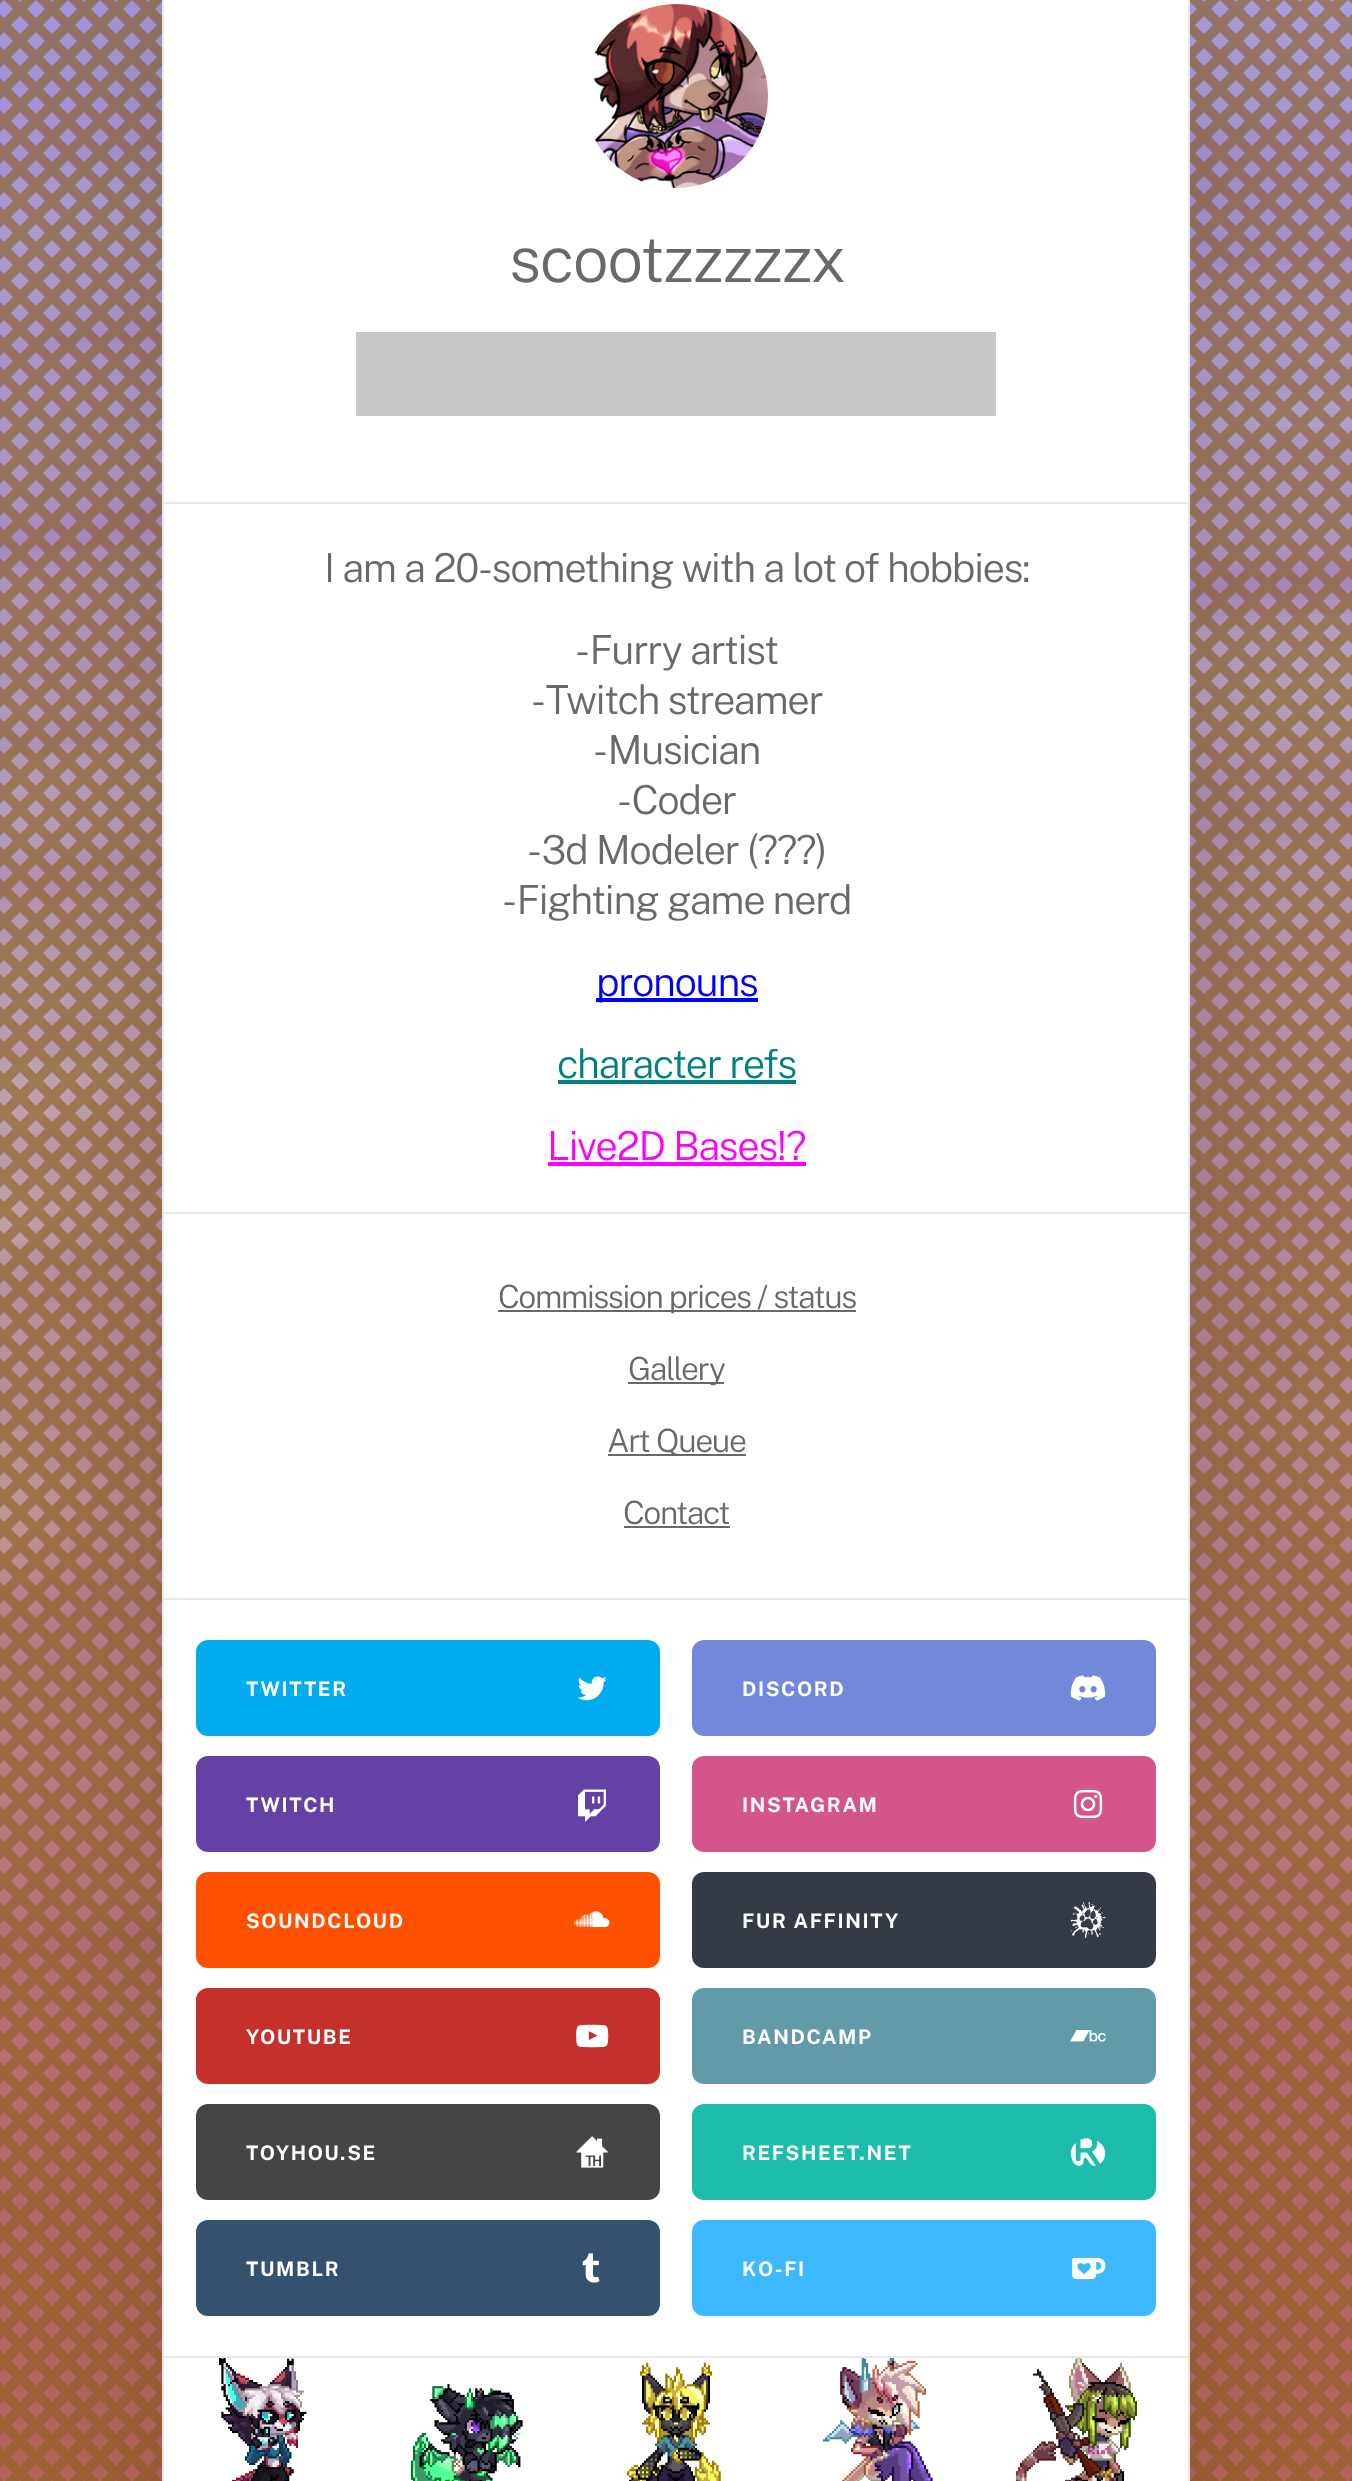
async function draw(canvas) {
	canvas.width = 1352;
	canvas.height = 2481;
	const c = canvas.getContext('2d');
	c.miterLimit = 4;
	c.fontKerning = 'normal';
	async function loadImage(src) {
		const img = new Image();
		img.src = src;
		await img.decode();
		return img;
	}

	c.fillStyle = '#fff';
	c.fillRect(0, 0, 1352, 2481);
	c.drawImage(await loadImage('img1.png'), 0, 0, 1352, 2481);
	c.fillStyle = '#00000017';
	c.filter = 'blur(64px)';
	c.beginPath();
	c.roundRect(162, -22, 1028, 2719, 24);
	c.fill();
	c.filter = 'none';
	c.fillStyle = '#fff';
	c.beginPath();
	c.rect(163, -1, 1026, 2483);
	c.fill();
	c.strokeStyle = '#e8e8e8';
	c.lineWidth = 2;
	c.stroke();
	c.fillStyle = '#e8e8e8';
	c.fillRect(164, 502, 1024, 2);
	c.drawImage(await loadImage('img2.png'), 593, 4, 175, 184);
	c.letterSpacing = '-1.4px';
	c.font = '300 64px Public Sans';
	c.fillStyle = '#696969';
	c.fillText('scootzzzzzx', 509, 282);
	c.fillStyle = '#c7c7c7';
	c.fillRect(356, 332, 640, 84);
	c.fillStyle = '#e8e8e8';
	c.fillRect(164, 1212, 1024, 2);
	c.font = '300 40px Public Sans';
	c.fillStyle = '#696969';
	for (const [text, x, y] of [
		['I am a 20-something with a lot of hobbies:', 324, 582],
		['- Furry artist', 575, 664],
		['- Twitch streamer', 531, 714],
		['- Musician', 593, 764],
		['- Coder', 617, 814],
		['- 3d Modeler (???)', 527, 864],
		['- Fighting game nerd', 502, 914],
	]) {
		c.fillText(text, x, y);
	}
	c.fillStyle = '#00f';
	c.fillRect(596, 998, 162, 4);
	c.fillText('pronouns', 596, 996);
	c.fillStyle = '#008080';
	c.fillText('character refs', 557, 1078);
	c.fillRect(558, 1080, 238, 4);
	c.fillStyle = '#f0f';
	c.fillText('Live2D Bases!?', 547, 1160);
	for (const [x, y, w, h, color] of [
		[548, 1162, 258, 4, '#f0f'],
		[164, 1598, 1024, 2, '#e8e8e8'],
		[498, 1310, 358, 2, '#696969'],
	]) {
		c.fillStyle = color;
		c.fillRect(x, y, w, h);
	}
	c.font = '300 32px Public Sans';
	c.fillText('Commission prices / status', 498, 1308);
	c.fillRect(628, 1382, 96, 2);
	c.fillText('Gallery', 628, 1380);
	c.fillRect(608, 1454, 138, 2);
	c.fillText('Art Queue', 607, 1452);
	c.fillText('Contact', 623, 1524);
	c.fillRect(624, 1526, 106, 2);
	c.fillStyle = '#e8e8e8';
	c.fillRect(164, 2356, 1024, 2);
	c.fillStyle = '#00acee';
	c.beginPath();
	c.roundRect(196, 1640, 464, 96, 12);
	c.fill();
	c.letterSpacing = '1.6px';
	c.font = 'bold 20px Public Sans';
	c.fillStyle = '#fff';
	c.fillText('TWITTER', 246, 1696);
	c.drawImage(await loadImage('img3.png'), 577, 1676, 30, 25);
	c.fillStyle = '#6441a5';
	c.beginPath();
	c.roundRect(196, 1756, 464, 96, 12);
	c.fill();
	c.fillStyle = '#fff';
	c.fillText('TWITCH', 246, 1812);
	c.drawImage(await loadImage('img4.png'), 578, 1789, 28, 33);
	c.fillStyle = '#fe5000';
	c.beginPath();
	c.roundRect(196, 1872, 464, 96, 12);
	c.fill();
	c.fillStyle = '#fff';
	c.fillText('SOUNDCLOUD', 246, 1928);
	c.drawImage(await loadImage('img5.png'), 574, 1911, 36, 16);
	c.fillStyle = '#c4302b';
	c.beginPath();
	c.roundRect(196, 1988, 464, 96, 12);
	c.fill();
	c.fillStyle = '#fff';
	c.fillText('YOUTUBE', 246, 2044);
	c.drawImage(await loadImage('img6.png'), 576, 2024, 33, 24);
	c.fillStyle = '#454545';
	c.beginPath();
	c.roundRect(196, 2104, 464, 96, 12);
	c.fill();
	c.fillStyle = '#fff';
	c.fillText('TOYHOU.SE', 246, 2160);
	c.drawImage(await loadImage('img7.png'), 576, 2136, 32, 32);
	c.fillStyle = '#34526f';
	c.beginPath();
	c.roundRect(196, 2220, 464, 96, 12);
	c.fill();
	c.fillStyle = '#fff';
	c.fillText('TUMBLR', 246, 2276);
	c.drawImage(await loadImage('img8.png'), 582, 2253, 18, 30);
	c.fillStyle = '#7289da';
	c.beginPath();
	c.roundRect(692, 1640, 464, 96, 12);
	c.fill();
	c.fillStyle = '#fff';
	c.fillText('DISCORD', 742, 1696);
	c.drawImage(await loadImage('img9.png'), 1070, 1675, 36, 26);
	c.fillStyle = '#d4558a';
	c.beginPath();
	c.roundRect(692, 1756, 464, 96, 12);
	c.fill();
	c.fillStyle = '#fff';
	c.fillText('INSTAGRAM', 742, 1812);
	c.drawImage(await loadImage('img10.png'), 1073, 1789, 30, 30);
	c.fillStyle = '#353b45';
	c.beginPath();
	c.roundRect(692, 1872, 464, 96, 12);
	c.fill();
	c.fillStyle = '#fff';
	c.fillText('FUR AFFINITY', 742, 1928);
	c.drawImage(await loadImage('img11.png'), 1070, 1902, 36, 36);
	c.fillStyle = '#629aa9';
	c.beginPath();
	c.roundRect(692, 1988, 464, 96, 12);
	c.fill();
	c.fillStyle = '#fff';
	c.fillText('BANDCAMP', 742, 2044);
	c.drawImage(await loadImage('img12.png'), 1070, 2030, 36, 12);
	c.fillStyle = '#1dbcad';
	c.beginPath();
	c.roundRect(692, 2104, 464, 96, 12);
	c.fill();
	c.fillStyle = '#fff';
	c.fillText('REFSHEET.NET', 742, 2160);
	c.drawImage(await loadImage('img13.png'), 1070, 2138, 36, 28);
	c.fillStyle = '#3db9ff';
	c.beginPath();
	c.roundRect(692, 2220, 464, 96, 12);
	c.fill();
	c.fillStyle = '#fff';
	c.fillText('KO-FI', 742, 2276);
	c.drawImage(await loadImage('img14.png'), 1072, 2257, 34, 23);
	c.drawImage(await loadImage('img15.png'), 219, 2358, 88, 123);
	c.drawImage(await loadImage('img16.png'), 410, 2384, 113, 97);
	c.drawImage(await loadImage('img17.png'), 627, 2362, 94, 119);
	c.drawImage(await loadImage('img18.png'), 822, 2358, 111, 123);
	c.drawImage(await loadImage('img19.png'), 1016, 2358, 121, 123);
}

draw(document.querySelector('canvas'));
